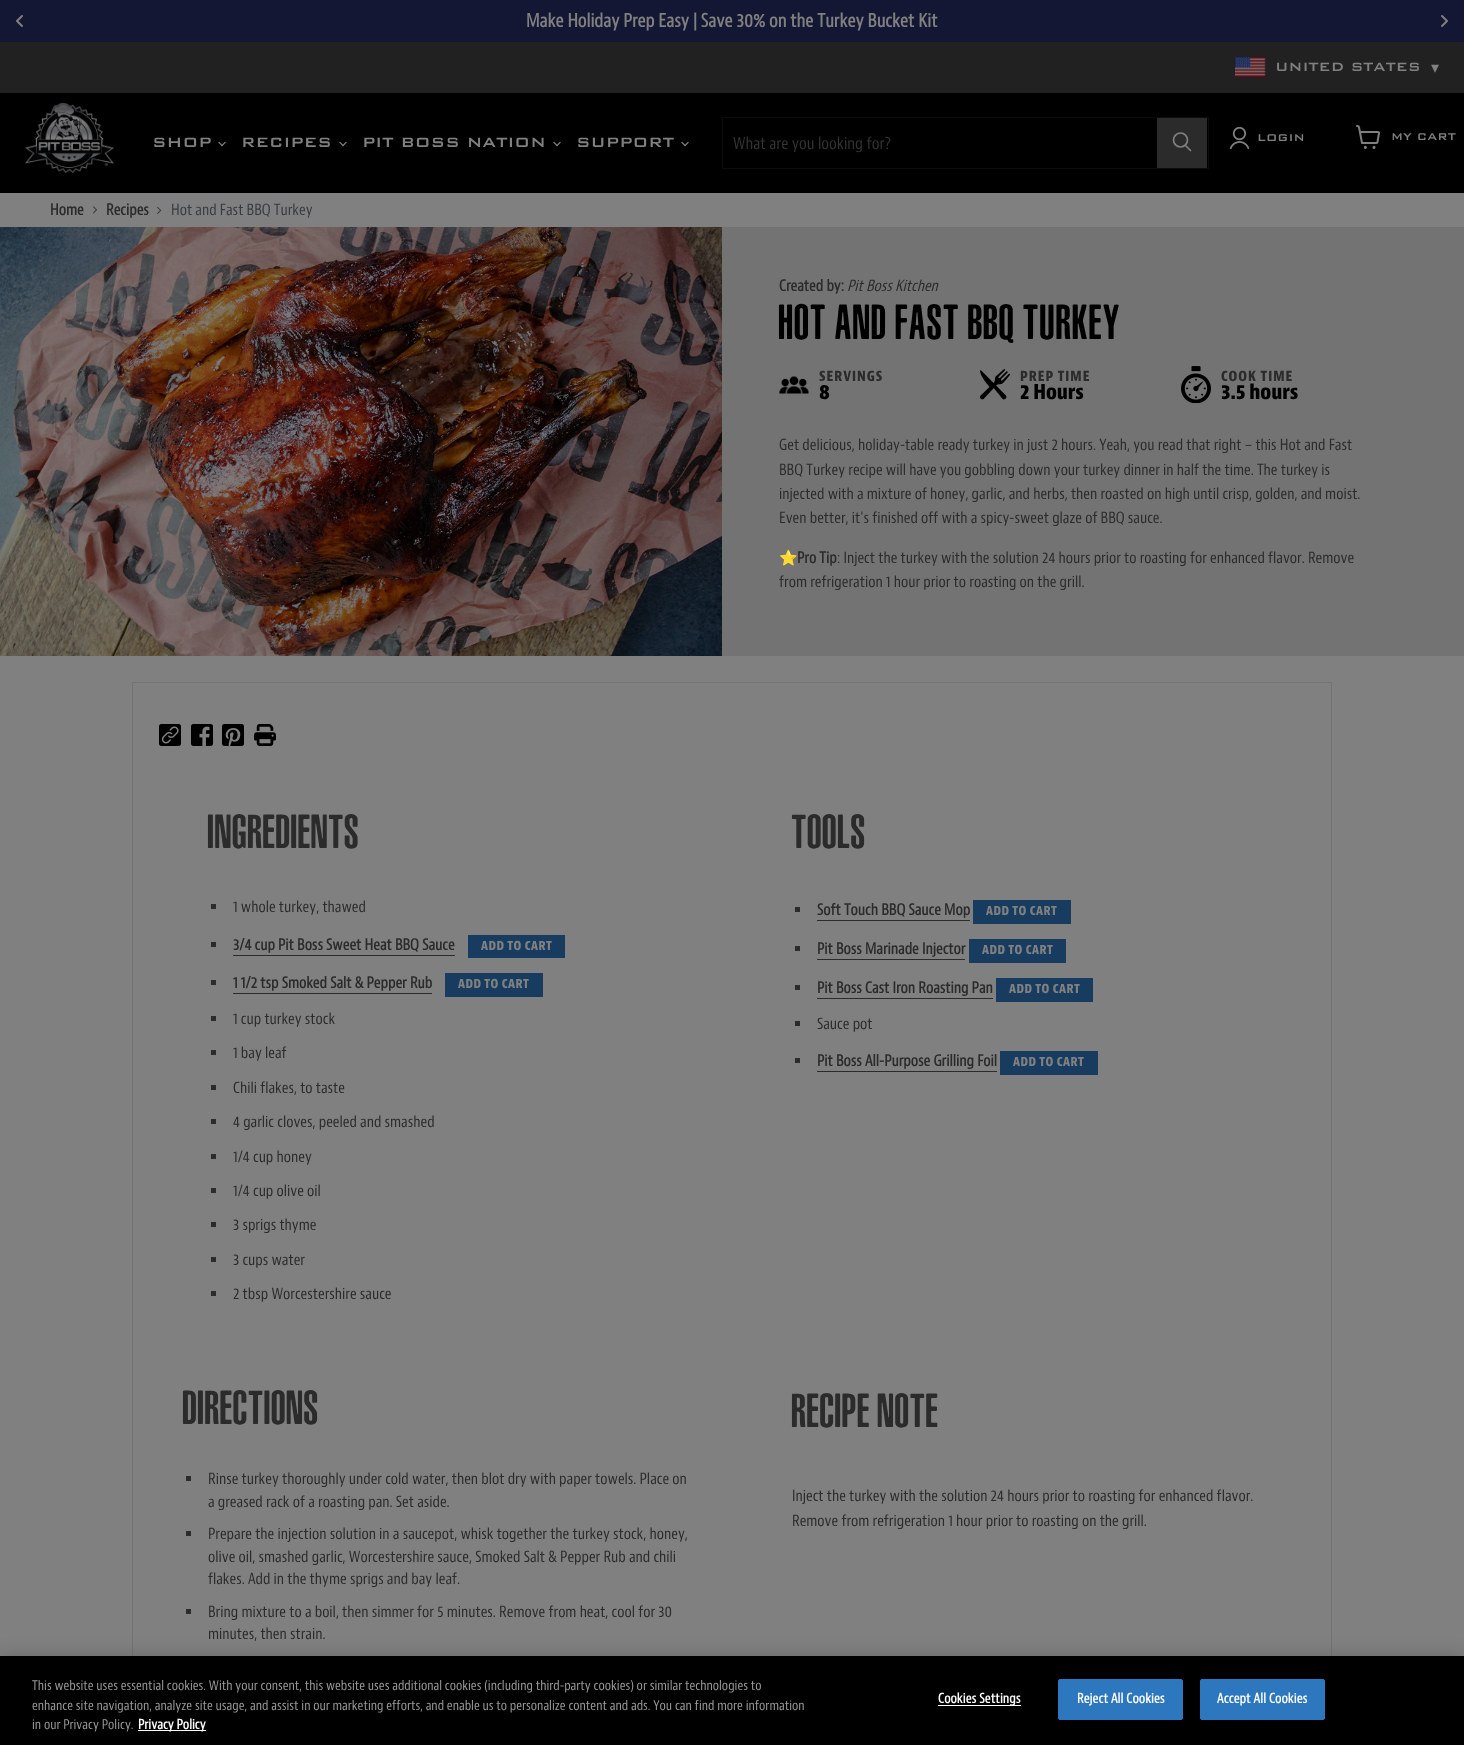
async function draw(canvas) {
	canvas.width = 1464;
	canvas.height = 1745;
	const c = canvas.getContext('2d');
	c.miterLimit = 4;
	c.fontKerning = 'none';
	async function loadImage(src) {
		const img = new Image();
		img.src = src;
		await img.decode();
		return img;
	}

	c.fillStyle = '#808080';
	c.fillRect(0, 0, 1464, 1745);
	c.fillStyle = '#141733';
	c.fillRect(0, 0, 1464, 42);
	c.font = 'bold 18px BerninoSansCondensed';
	c.fillStyle = '#808080';
	c.fillText('Make Holiday Prep Easy | Save 30% on the Turkey Bucket Kit', 526, 27);
	c.drawImage(await loadImage('img1.png'), 16, 15, 7, 12);
	c.drawImage(await loadImage('img2.png'), 1441, 15, 7, 12);
	c.fillStyle = '#212121';
	c.fillRect(0, 42, 1464, 51);
	c.drawImage(await loadImage('img3.png'), 1235, 56, 31, 21);
	c.font = 'bold 16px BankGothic';
	c.fillStyle = '#808080';
	c.fillText('UNITED STATES', 1275, 71);
	c.font = '16px DejaVu Sans';
	c.fillText('▾', 1431, 73);
	c.fillStyle = '#000';
	c.fillRect(0, 93, 1464, 100);
	c.drawImage(await loadImage('img4.png'), 25, 102, 89, 71);
	c.font = 'bold 18px BankGothic';
	c.fillStyle = '#808080';
	c.fillText('SHOP', 152, 147);
	c.drawImage(await loadImage('img5.png'), 218, 141, 8, 6);
	c.fillText('RECIPES', 241, 147);
	c.drawImage(await loadImage('img5.png'), 339, 141, 8, 6);
	c.fillText('PIT BOSS NATION', 362, 147);
	c.drawImage(await loadImage('img5.png'), 553, 141, 8, 6);
	c.fillText('SUPPORT', 576, 147);
	c.drawImage(await loadImage('img5.png'), 681, 141, 8, 6);
	c.strokeStyle = '#0d0d0d';
	c.strokeRect(722.5, 117.5, 486, 51);
	c.font = '16px BerninoSansCondensed';
	c.fillStyle = '#333';
	c.fillText('What are you looking for?', 733, 149);
	c.fillStyle = '#2b2b2b';
	c.fillRect(1157, 118, 50, 50);
	c.beginPath();
	c.moveTo(1190.5, 150.5);
	c.lineTo(1185.5, 145.5);
	c.strokeStyle = '#808080';
	c.lineWidth = 1.7;
	c.lineCap = 'round';
	c.stroke();
	c.beginPath();
	c.arc(1180.5, 140, 7, 0, 2 * Math.PI);
	c.stroke();
	c.drawImage(await loadImage('img6.png'), 1229, 126, 20, 24);
	c.font = 'bold 13px BankGothic';
	c.fillStyle = '#808080';
	c.fillText('LOGIN', 1257, 141);
	c.drawImage(await loadImage('img7.png'), 1356, 125, 24, 24);
	c.fillText('MY CART', 1391, 140);
	c.font = 'bold 15px BerninoSansCondensed';
	c.fillStyle = '#2b2b2b';
	c.fillText('Home', 50, 215);
	c.drawImage(await loadImage('img8.png'), 92, 206, 5, 8);
	c.fillText('Recipes', 106, 215);
	c.drawImage(await loadImage('img9.png'), 157, 207, 5, 7);
	c.font = '15px BerninoSansCondensed';
	c.fillStyle = '#363b3f';
	c.fillText('Hot and Fast BBQ Turkey', 171, 215);
	c.fillStyle = '#737373';
	c.fillRect(722, 227, 742, 429);
	c.drawImage(await loadImage('img10.png'), 0, 227, 722, 429);
	c.font = 'bold 15px BerninoSansCondensed';
	c.fillStyle = '#2b2b2b';
	c.fillText('Created by:', 779, 291);
	c.font = 'italic 15px BerninoSansCondensed';
	c.fillText('Pit Boss Kitchen', 847, 291);
	c.letterSpacing = '1px';
	c.font = '49.5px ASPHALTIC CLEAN';
	c.fillStyle = '#000';
	c.fillText('HOT AND FAST BBQ TURKEY', 779, 339);
	c.drawImage(await loadImage('img11.png'), 779, 376, 30, 18);
	c.font = '800 13.5px BerninoSansCondensed';
	c.fillStyle = '#2b2b2b';
	c.fillText('SERVINGS', 819, 381);
	c.letterSpacing = '0px';
	c.font = '800 20px BerninoSansCondensed';
	c.fillStyle = '#000';
	c.fillText('8', 819, 399);
	c.drawImage(await loadImage('img12.png'), 980, 369, 30, 31);
	c.letterSpacing = '1px';
	c.font = '800 13.5px BerninoSansCondensed';
	c.fillStyle = '#2b2b2b';
	c.fillText('PREP TIME', 1020, 381);
	c.letterSpacing = '0px';
	c.font = '800 20px BerninoSansCondensed';
	c.fillStyle = '#000';
	c.fillText('2 Hours', 1020, 399);
	c.drawImage(await loadImage('img13.png'), 1181, 366, 30, 37);
	c.letterSpacing = '1px';
	c.font = '800 13.5px BerninoSansCondensed';
	c.fillStyle = '#2b2b2b';
	c.fillText('COOK TIME', 1221, 381);
	c.letterSpacing = '0px';
	c.font = '800 20px BerninoSansCondensed';
	c.fillStyle = '#000';
	c.fillText('3.5 hours', 1221, 399);
	c.font = '15px BerninoSansCondensed';
	c.fillStyle = '#2b2b2b';
	for (const [text, x, y] of [
		['Get delicious, holiday-table ready turkey in just 2 hours. Yeah, you read that right – this Hot and Fast', 779, 450],
		['BBQ Turkey recipe will have you gobbling down your turkey dinner in half the time. The turkey is', 779, 475],
		['injected with a mixture of honey, garlic, and herbs, then roasted on high until crisp, golden, and moist.', 779, 499],
		['Even better, it\'s finished off with a spicy-sweet glaze of BBQ sauce.', 779, 523],
	]) {
		c.fillText(text, x, y);
	}
	c.font = '15px Noto Color Emoji';
	c.fillText('⭐', 779, 563);
	c.font = 'bold 15px BerninoSansCondensed';
	c.fillText('Pro Tip', 797, 563);
	c.font = '15px BerninoSansCondensed';
	c.fillText(': Inject the turkey with the solution 24 hours prior to roasting for enhanced flavor. Remove', 837, 563);
	c.fillText('from refrigeration 1 hour prior to roasting on the grill.', 779, 587);
	c.strokeStyle = '#737373';
	c.lineWidth = 1;
	c.strokeRect(132.5, 682.5, 1199, 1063);
	c.drawImage(await loadImage('img14.png'), 159, 724, 22, 22);
	c.drawImage(await loadImage('img15.png'), 191, 724, 22, 22);
	c.drawImage(await loadImage('img16.png'), 222, 724, 22, 22);
	c.drawImage(await loadImage('img17.png'), 254, 724, 22, 22);
	c.letterSpacing = '0.5px';
	c.font = '48px ASPHALTIC CLEAN';
	c.fillText('INGREDIENTS', 208, 848);
	c.fillRect(211, 904, 5, 5);
	c.letterSpacing = '0px';
	c.font = '15px BerninoSansCondensed';
	c.fillText('1 whole turkey, thawed', 233, 912);
	c.fillRect(211, 942, 5, 5);
	c.font = 'bold 15px BerninoSansCondensed';
	c.fillText('3/4 cup Pit Boss Sweet Heat BBQ Sauce', 233, 950);
	c.fillRect(233, 955, 222, 1);
	c.fillStyle = '#173c5f';
	c.fillRect(468, 935, 97, 23);
	c.letterSpacing = '0.5px';
	c.font = '800 12px BerninoSansCondensed';
	c.fillStyle = '#808080';
	c.fillText('ADD TO CART', 481, 950);
	c.fillStyle = '#2b2b2b';
	c.fillRect(211, 980, 5, 5);
	c.letterSpacing = '0px';
	c.font = 'bold 15px BerninoSansCondensed';
	c.fillText('1 1/2 tsp Smoked Salt & Pepper Rub', 233, 988);
	c.fillRect(233, 993, 199, 1);
	c.fillStyle = '#173c5f';
	c.fillRect(445, 973, 98, 24);
	c.letterSpacing = '0.5px';
	c.font = '800 12px BerninoSansCondensed';
	c.fillStyle = '#808080';
	c.fillText('ADD TO CART', 458, 988);
	c.fillStyle = '#2b2b2b';
	c.fillRect(211, 1016, 5, 5);
	c.letterSpacing = '0px';
	c.font = '15px BerninoSansCondensed';
	c.fillText('1 cup turkey stock', 233, 1024);
	c.fillRect(211, 1050, 5, 5);
	c.fillText('1 bay leaf', 233, 1058);
	c.fillRect(211, 1085, 5, 5);
	c.fillText('Chili flakes, to taste', 233, 1093);
	c.fillRect(211, 1119, 5, 5);
	c.fillText('4 garlic cloves, peeled and smashed', 233, 1127);
	c.fillRect(211, 1154, 5, 5);
	c.fillText('1/4 cup honey', 233, 1162);
	c.fillRect(211, 1188, 5, 5);
	c.fillText('1/4 cup olive oil', 233, 1196);
	c.fillRect(211, 1222, 5, 5);
	c.fillText('3 sprigs thyme', 233, 1230);
	c.fillRect(211, 1257, 5, 5);
	c.fillText('3 cups water', 233, 1265);
	c.fillRect(211, 1291, 5, 5);
	c.fillText('2 tbsp Worcestershire sauce', 233, 1299);
	c.letterSpacing = '0.5px';
	c.font = '48px ASPHALTIC CLEAN';
	c.fillText('TOOLS', 792, 848);
	c.fillRect(795, 907, 5, 5);
	c.letterSpacing = '0px';
	c.font = 'bold 15px BerninoSansCondensed';
	c.fillText('Soft Touch BBQ Sauce Mop', 817, 915);
	c.fillRect(817, 920, 153, 1);
	c.fillStyle = '#173c5f';
	c.fillRect(973, 900, 98, 24);
	c.letterSpacing = '0.5px';
	c.font = '800 12px BerninoSansCondensed';
	c.fillStyle = '#808080';
	c.fillText('ADD TO CART', 986, 915);
	c.fillStyle = '#2b2b2b';
	c.fillRect(795, 946, 5, 5);
	c.letterSpacing = '0px';
	c.font = 'bold 15px BerninoSansCondensed';
	c.fillText('Pit Boss Marinade Injector', 817, 954);
	c.fillRect(817, 959, 148, 1);
	c.fillStyle = '#173c5f';
	c.fillRect(969, 939, 97, 24);
	c.letterSpacing = '0.5px';
	c.font = '800 12px BerninoSansCondensed';
	c.fillStyle = '#808080';
	c.fillText('ADD TO CART', 982, 954);
	c.fillStyle = '#2b2b2b';
	c.fillRect(795, 985, 5, 5);
	c.letterSpacing = '0px';
	c.font = 'bold 15px BerninoSansCondensed';
	c.fillText('Pit Boss Cast Iron Roasting Pan', 817, 993);
	c.fillRect(817, 998, 176, 1);
	c.fillStyle = '#173c5f';
	c.fillRect(996, 978, 97, 24);
	c.letterSpacing = '0.5px';
	c.font = '800 12px BerninoSansCondensed';
	c.fillStyle = '#808080';
	c.fillText('ADD TO CART', 1009, 993);
	c.fillStyle = '#2b2b2b';
	c.fillRect(795, 1021, 5, 5);
	c.letterSpacing = '0px';
	c.font = '15px BerninoSansCondensed';
	c.fillText('Sauce pot', 817, 1029);
	c.fillRect(795, 1058, 5, 5);
	c.font = 'bold 15px BerninoSansCondensed';
	c.fillText('Pit Boss All-Purpose Grilling Foil', 817, 1066);
	c.fillRect(817, 1071, 180, 1);
	c.fillStyle = '#173c5f';
	c.fillRect(1000, 1051, 98, 24);
	c.letterSpacing = '0.5px';
	c.font = '800 12px BerninoSansCondensed';
	c.fillStyle = '#808080';
	c.fillText('ADD TO CART', 1013, 1066);
	c.font = '48px ASPHALTIC CLEAN';
	c.fillStyle = '#2b2b2b';
	c.fillText('DIRECTIONS', 183, 1424);
	c.fillRect(186, 1476, 5, 5);
	c.letterSpacing = '0px';
	c.font = '15px BerninoSansCondensed';
	c.fillText('Rinse turkey thoroughly under cold water, then blot dry with paper towels. Place on', 208, 1484);
	c.fillText('a greased rack of a roasting pan. Set aside.', 208, 1507);
	c.fillRect(186, 1531, 5, 5);
	for (const [text, x, y] of [
		['Prepare the injection solution in a saucepot, whisk together the turkey stock, honey,', 208, 1539],
		['olive oil, smashed garlic, Worcestershire sauce, Smoked Salt & Pepper Rub and chili', 208, 1562],
		['flakes. Add in the thyme sprigs and bay leaf.', 208, 1584],
	]) {
		c.fillText(text, x, y);
	}
	c.fillRect(186, 1609, 5, 5);
	c.fillText('Bring mixture to a boil, then simmer for 5 minutes. Remove from heat, cool for 30', 208, 1617);
	c.fillText('minutes, then strain.', 208, 1639);
	c.letterSpacing = '0.5px';
	c.font = '48px ASPHALTIC CLEAN';
	c.fillText('RECIPE NOTE', 792, 1427);
	c.letterSpacing = '0px';
	c.font = '15px BerninoSansCondensed';
	c.fillText('Inject the turkey with the solution 24 hours prior to roasting for enhanced flavor.', 792, 1501);
	c.fillText('Remove from refrigeration 1 hour prior to roasting on the grill.', 792, 1526);
	c.fillStyle = '#00000033';
	c.filter = 'blur(9px)';
	c.beginPath();
	c.rect(0, 1656, 1464, 89);
	c.fill();
	c.filter = 'none';
	c.fillStyle = '#000';
	c.fillRect(0, 1656, 1464, 89);
	c.font = '13px BerninoSansCondensed';
	c.fillStyle = '#999';
	for (const [text, x, y] of [
		['This website uses essential cookies. With your consent, this website uses additional cookies (including third-party cookies) or similar technologies to', 32, 1690],
		['enhance site navigation, analyze site usage, and assist in our marketing efforts, and enable us to personalize content and ads. You can find more information', 32, 1710],
		['in our Privacy Policy.', 32, 1729],
	]) {
		c.fillText(text, x, y);
	}
	c.fillStyle = '#fff';
	c.fillRect(138, 1730, 68, 1);
	c.font = 'bold 13px BerninoSansCondensed';
	c.fillText('Privacy Policy', 138, 1729);
	c.fillRect(938, 1705, 83, 1);
	c.letterSpacing = '0.1px';
	c.fillText('Cookies Settings', 938, 1703);
	c.fillStyle = '#2d77be';
	c.beginPath();
	c.roundRect(1058.5, 1679.5, 124, 40, 1.5);
	c.fill();
	c.strokeStyle = '#2d77be';
	c.stroke();
	c.fillStyle = '#fff';
	c.fillText('Reject All Cookies', 1077, 1703);
	c.fillStyle = '#2d77be';
	c.beginPath();
	c.roundRect(1200.5, 1679.5, 124, 40, 1.5);
	c.fill();
	c.stroke();
	c.fillStyle = '#fff';
	c.fillText('Accept All Cookies', 1217, 1703);
}

draw(document.querySelector('canvas'));
